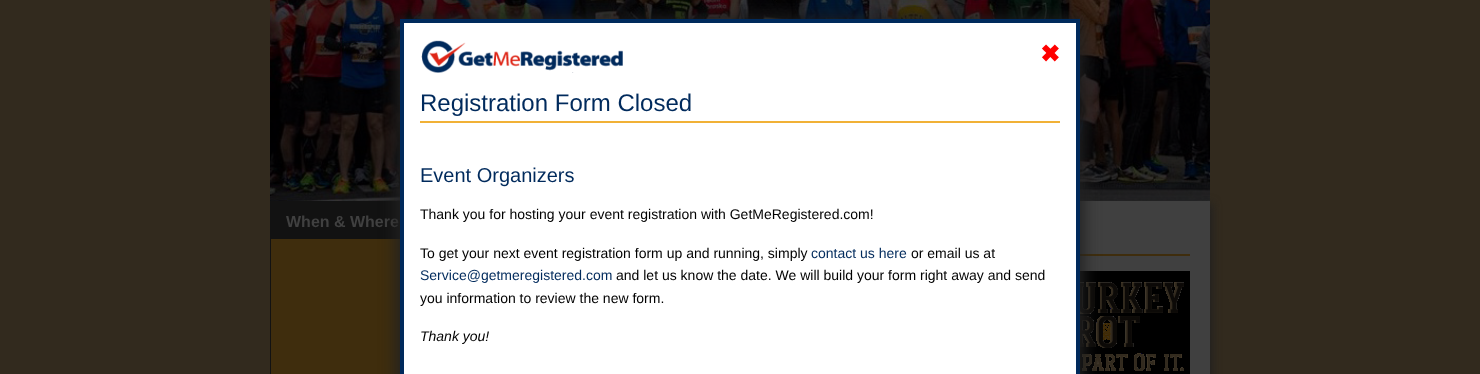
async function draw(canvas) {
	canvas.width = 1480;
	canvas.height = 374;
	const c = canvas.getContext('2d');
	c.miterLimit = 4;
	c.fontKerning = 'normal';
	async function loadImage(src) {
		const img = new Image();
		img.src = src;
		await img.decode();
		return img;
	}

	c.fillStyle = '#322a1e';
	c.fillRect(0, 0, 1480, 374);
	c.drawImage(await loadImage('img1.png'), 270, 0, 940, 201);
	c.fillStyle = '#3f2d0d';
	c.fillRect(271, 239, 129, 135);
	c.strokeStyle = '#121212';
	c.strokeRect(270.5, 201.5, 224, 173);
	c.fillStyle = '#121212';
	c.fillRect(271, 202, 129, 37);
	c.font = 'bold 16px Liberation Sans';
	c.fillStyle = '#404040';
	c.fillText('When & Where', 286, 227);
	c.fillStyle = '#202020';
	c.filter = 'blur(5px)';
	c.beginPath();
	c.rect(503, 204, 709, 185);
	c.fill();
	c.filter = 'none';
	c.fillStyle = '#404040';
	c.fillRect(1080, 201, 130, 173);
	c.fillStyle = '#3f2d0d';
	c.fillRect(1080, 254, 110, 2);
	c.drawImage(await loadImage('img2.png'), 1080, 271, 110, 103);
	c.fillStyle = '#222';
	c.filter = 'blur(8px)';
	c.beginPath();
	c.rect(396, 19, 688, 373);
	c.fill();
	c.filter = 'none';
	c.fillStyle = '#fff';
	c.beginPath();
	c.rect(402, 21, 676, 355);
	c.fill();
	c.strokeStyle = '#002a5c';
	c.lineWidth = 4;
	c.stroke();
	c.drawImage(await loadImage('img3.png'), 421, 40, 202, 33);
	c.font = 'bold 24px DejaVu Sans';
	c.fillStyle = '#f00';
	c.fillText('✖', 1040, 62);
	c.fillStyle = '#f1b136';
	c.fillRect(420, 121, 640, 2);
	c.font = '24px Liberation Sans';
	c.fillStyle = '#002a5c';
	c.fillText('Registration Form Closed', 420, 111);
	c.font = '20px Liberation Sans';
	c.fillText('Event Organizers', 420, 182);
	c.font = '14px Liberation Sans';
	c.fillStyle = '#000';
	c.fillText('Thank you for hosting your event registration with GetMeRegistered.com!', 420, 219);
	c.fillText('To get your next event registration form up and running, simply', 420, 258);
	c.fillStyle = '#002a5c';
	c.fillText('contact us here', 811, 258);
	c.fillStyle = '#000';
	c.fillText('or email us at', 911, 258);
	c.fillStyle = '#002a5c';
	c.fillText('Service@getmeregistered.com', 420, 280);
	c.fillStyle = '#000';
	c.fillText('and let us know the date. We will build your form right away and send', 616, 280);
	c.fillText('you information to review the new form.', 420, 303);
	c.font = 'italic 14px Liberation Sans';
	c.fillText('Thank you!', 420, 341);
}

draw(document.querySelector('canvas'));
